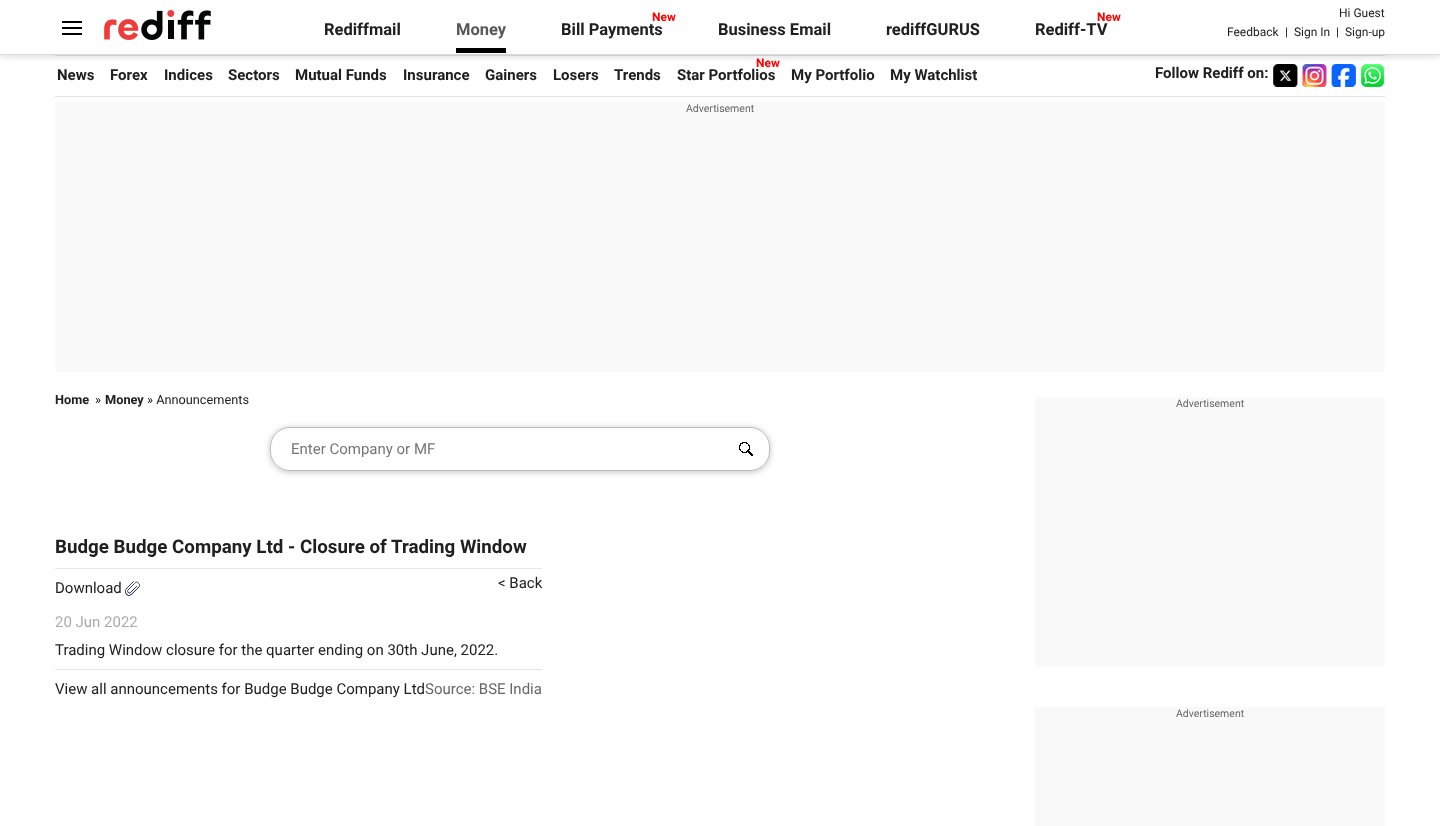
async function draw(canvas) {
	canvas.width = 1440;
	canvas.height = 826;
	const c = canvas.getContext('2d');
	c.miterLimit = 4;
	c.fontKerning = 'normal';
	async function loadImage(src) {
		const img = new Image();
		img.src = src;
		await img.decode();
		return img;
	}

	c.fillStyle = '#fff';
	c.fillRect(0, 0, 1440, 826);
	c.fillStyle = '#e4e4e4';
	c.fillRect(55, 55, 1330, 1);
	c.drawImage(await loadImage('img3.png'), 1273, 64, 25, 23);
	c.drawImage(await loadImage('img4.png'), 1302, 64, 25, 23);
	c.drawImage(await loadImage('img5.png'), 1331, 64, 25, 23);
	c.drawImage(await loadImage('img6.png'), 1361, 64, 23, 23);
	c.save();
	c.beginPath();
	c.rect(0, 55, 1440, 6);
	c.clip();
	c.fillStyle = '#00000033';
	c.filter = 'blur(5px)';
	c.beginPath();
	c.rect(0, 0, 1440, 55);
	c.fill();
	c.filter = 'none';
	c.restore();
	c.fillStyle = '#dbdbdb';
	c.fillRect(0, 54, 1440, 1);
	c.drawImage(await loadImage('img1.png'), 62, 21, 20, 14);
	c.drawImage(await loadImage('img2.png'), 104, 10, 107, 30);
	c.font = 'bold 16.5px Roboto';
	c.fillStyle = '#202020';
	c.fillText('Rediffmail', 324, 35);
	c.fillStyle = '#575757';
	c.fillText('Money', 456, 35);
	c.fillStyle = '#000';
	c.fillRect(456, 48, 50, 5);
	c.font = 'bold 12px Roboto';
	c.fillStyle = '#f00';
	c.fillText('New', 652, 21);
	c.font = 'bold 16.5px Roboto';
	c.fillStyle = '#202020';
	for (const [text, x, y] of [
		['Bill Payments', 561, 35],
		['Business Email', 718, 35],
		['rediffGURUS', 886, 35],
	]) {
		c.fillText(text, x, y);
	}
	c.font = 'bold 12px Roboto';
	c.fillStyle = '#f00';
	c.fillText('New', 1097, 21);
	c.font = 'bold 16.5px Roboto';
	c.fillStyle = '#202020';
	c.fillText('Rediff-TV', 1035, 35);
	c.font = '12px Roboto';
	for (const [text, x, y] of [
		['Hi Guest', 1339, 17],
		['Feedback', 1227, 36],
		['|', 1285, 36],
		['Sign In', 1294, 36],
		['|', 1336, 36],
		['Sign-up', 1345, 36],
	]) {
		c.fillText(text, x, y);
	}
	c.fillStyle = '#e4e4e4';
	c.fillRect(55, 96, 1330, 1);
	c.font = 'bold 15px Roboto';
	c.fillStyle = '#202020';
	for (const [text, x, y] of [
		['News', 57, 80],
		['Forex', 110, 80],
		['Indices', 164, 80],
		['Sectors', 228, 80],
		['Mutual Funds', 295, 80],
		['Insurance', 403, 80],
		['Gainers', 485, 80],
		['Losers', 553, 80],
		['Trends', 614, 80],
	]) {
		c.fillText(text, x, y);
	}
	c.font = 'bold 12px Roboto';
	c.fillStyle = '#f00';
	c.fillText('New', 756, 67);
	c.font = 'bold 15px Roboto';
	c.fillStyle = '#202020';
	for (const [text, x, y] of [
		['Star Portfolios', 677, 80],
		['My Portfolio', 791, 80],
		['My Watchlist', 890, 80],
		['Follow Rediff on:', 1155, 78],
	]) {
		c.fillText(text, x, y);
	}
	c.fillStyle = '#f9f9f9';
	c.fillRect(55, 102, 1330, 270);
	c.font = '10.5px Roboto';
	c.fillStyle = '#666';
	c.fillText('Advertisement', 686, 112);
	c.font = 'bold 12.75px Roboto';
	c.fillStyle = '#202020';
	c.fillText('Home', 55, 404);
	c.font = '12.75px Roboto';
	c.fillText('»', 95, 404);
	c.font = 'bold 12.75px Roboto';
	c.fillText('Money', 105, 404);
	c.font = '12.75px Roboto';
	c.fillText('» Announcements', 147, 404);
	c.save();
	c.beginPath();
	c.moveTo(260, 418);
	c.lineTo(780, 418);
	c.lineTo(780, 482);
	c.lineTo(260, 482);
	c.closePath();
	c.moveTo(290, 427);
	c.lineTo(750, 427);
	c.bezierCurveTo(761, 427, 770, 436, 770, 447);
	c.lineTo(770, 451);
	c.bezierCurveTo(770, 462, 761, 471, 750, 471);
	c.lineTo(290, 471);
	c.bezierCurveTo(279, 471, 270, 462, 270, 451);
	c.lineTo(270, 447);
	c.bezierCurveTo(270, 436, 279, 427, 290, 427);
	c.closePath();
	c.clip('evenodd');
	c.fillStyle = '#20212447';
	c.filter = 'blur(3px)';
	c.beginPath();
	c.roundRect(270, 428, 500, 44, 20);
	c.fill();
	c.filter = 'none';
	c.restore();
	c.beginPath();
	c.roundRect(270.5, 427.5, 499, 43, 19.5);
	c.strokeStyle = '#bbb';
	c.stroke();
	c.font = '15px Roboto';
	c.fillStyle = '#757575';
	c.fillText('Enter Company or MF', 291, 454);
	c.drawImage(await loadImage('img7.png'), 739, 442, 14, 14);
	c.font = 'bold 18.75px Roboto';
	c.fillStyle = '#202020';
	c.fillText('Budge Budge Company Ltd - Closure of Trading Window', 55, 553);
	c.fillStyle = '#e5e5e5';
	c.fillRect(55, 568, 487, 1);
	c.font = '15px Roboto';
	c.fillStyle = '#202020';
	c.fillText('Download', 55, 593);
	c.drawImage(await loadImage('img8.png'), 125, 581, 15, 15);
	c.fillText('< Back', 498, 588);
	c.fillStyle = '#aaa';
	c.fillText('20 Jun 2022', 55, 627);
	c.fillStyle = '#202020';
	c.fillText('Trading Window closure for the quarter ending on 30th June, 2022.', 55, 655);
	c.fillStyle = '#e5e5e5';
	c.fillRect(55, 669, 487, 1);
	c.fillStyle = '#202020';
	c.fillText('View all announcements for Budge Budge Company Ltd', 55, 694);
	c.fillStyle = '#666';
	c.fillText('Source: BSE India', 425, 694);
	c.fillStyle = '#f9f9f9';
	c.fillRect(1035, 397, 350, 270);
	c.font = '10.5px Roboto';
	c.fillStyle = '#666';
	c.fillText('Advertisement', 1176, 407);
	c.fillStyle = '#f9f9f9';
	c.fillRect(1035, 707, 350, 119);
	c.fillStyle = '#666';
	c.fillText('Advertisement', 1176, 717);
}

draw(document.querySelector('canvas'));
